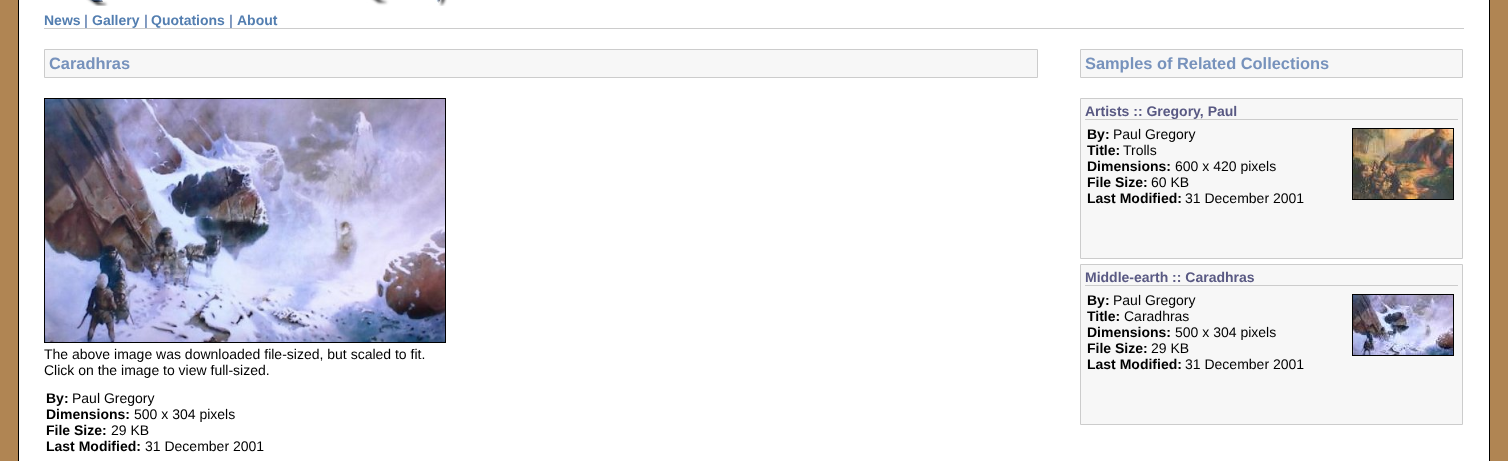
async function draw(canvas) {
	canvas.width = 1508;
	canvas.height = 461;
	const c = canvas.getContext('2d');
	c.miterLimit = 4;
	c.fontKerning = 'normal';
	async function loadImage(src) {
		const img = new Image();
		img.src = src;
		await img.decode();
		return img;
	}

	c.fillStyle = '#b08553';
	c.fillRect(0, 0, 1508, 461);
	c.fillStyle = '#fff';
	c.beginPath();
	c.rect(18.5, -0.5, 1471, 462);
	c.fill();
	c.strokeStyle = '#000';
	c.stroke();
	c.drawImage(await loadImage('img1.png'), 86, 0, 361, 6);
	c.fillStyle = '#ccc';
	c.fillRect(44, 28, 1420, 1);
	c.font = 'bold 14px Liberation Sans';
	c.fillStyle = '#537eb0';
	c.fillText('News', 44, 25);
	c.fillStyle = '#7792bc';
	c.fillText('|', 84, 25);
	c.fillStyle = '#537eb0';
	c.fillText('Gallery', 92, 25);
	c.fillStyle = '#7792bc';
	c.fillText('|', 144, 25);
	c.fillStyle = '#537eb0';
	c.fillText('Quotations', 151, 25);
	c.fillStyle = '#7792bc';
	c.fillText('|', 229, 25);
	c.fillStyle = '#537eb0';
	c.fillText('About', 237, 25);
	c.fillStyle = '#f7f7f7';
	c.beginPath();
	c.rect(44.5, 49.5, 993, 28);
	c.fill();
	c.strokeStyle = '#ccc';
	c.stroke();
	c.font = 'bold 16.4px Liberation Sans';
	c.fillStyle = '#7792bc';
	c.fillText('Caradhras', 49, 69);
	c.strokeStyle = '#000';
	c.strokeRect(44.5, 98.5, 401, 244);
	c.drawImage(await loadImage('img2.png'), 45, 99, 400, 243);
	c.font = '14px Liberation Sans';
	c.fillStyle = '#000';
	c.fillText('The above image was downloaded file-sized, but scaled to fit.', 44, 359);
	c.fillText('Click on the image to view full-sized.', 44, 375);
	c.font = 'bold 14px Liberation Sans';
	c.fillText('By:', 46, 403);
	c.font = '14px Liberation Sans';
	c.fillText('Paul Gregory', 72, 403);
	c.font = 'bold 14px Liberation Sans';
	c.fillText('Dimensions:', 46, 419);
	c.font = '14px Liberation Sans';
	c.fillText('500 x 304 pixels', 134, 419);
	c.font = 'bold 14px Liberation Sans';
	c.fillText('File Size:', 46, 435);
	c.font = '14px Liberation Sans';
	c.fillText('29 KB', 111, 435);
	c.font = 'bold 14px Liberation Sans';
	c.fillText('Last Modified:', 46, 451);
	c.font = '14px Liberation Sans';
	c.fillText('31 December 2001', 145, 451);
	c.fillStyle = '#f7f7f7';
	c.beginPath();
	c.rect(1080.5, 49.5, 382, 28);
	c.fill();
	c.strokeStyle = '#ccc';
	c.stroke();
	c.font = 'bold 16.4px Liberation Sans';
	c.fillStyle = '#7792bc';
	c.fillText('Samples of Related Collections', 1085, 69);
	c.fillStyle = '#f7f7f7';
	c.beginPath();
	c.rect(1080.5, 98.5, 382, 160);
	c.fill();
	c.stroke();
	c.fillStyle = '#ccc';
	c.fillRect(1085, 119, 373, 1);
	c.font = 'bold 14px Liberation Sans';
	c.fillStyle = '#595983';
	c.fillText('Artists :: Gregory, Paul', 1085, 116);
	c.fillStyle = '#000';
	c.fillText('By:', 1087, 139);
	c.font = '14px Liberation Sans';
	c.fillText('Paul Gregory', 1113, 139);
	c.font = 'bold 14px Liberation Sans';
	c.fillText('Title:', 1087, 155);
	c.font = '14px Liberation Sans';
	c.fillText('Trolls', 1123, 155);
	c.font = 'bold 14px Liberation Sans';
	c.fillText('Dimensions:', 1087, 171);
	c.font = '14px Liberation Sans';
	c.fillText('600 x 420 pixels', 1175, 171);
	c.font = 'bold 14px Liberation Sans';
	c.fillText('File Size:', 1087, 187);
	c.font = '14px Liberation Sans';
	c.fillText('60 KB', 1151, 187);
	c.font = 'bold 14px Liberation Sans';
	c.fillText('Last Modified:', 1087, 203);
	c.font = '14px Liberation Sans';
	c.fillText('31 December 2001', 1185, 203);
	c.strokeStyle = '#000';
	c.strokeRect(1352.5, 128.5, 101, 71);
	c.drawImage(await loadImage('img3.png'), 1353, 129, 100, 70);
	c.fillStyle = '#f7f7f7';
	c.beginPath();
	c.rect(1080.5, 264.5, 382, 160);
	c.fill();
	c.strokeStyle = '#ccc';
	c.stroke();
	c.fillStyle = '#ccc';
	c.fillRect(1085, 285, 373, 1);
	c.font = 'bold 14px Liberation Sans';
	c.fillStyle = '#595983';
	c.fillText('Middle-earth :: Caradhras', 1085, 282);
	c.fillStyle = '#000';
	c.fillText('By:', 1087, 305);
	c.font = '14px Liberation Sans';
	c.fillText('Paul Gregory', 1113, 305);
	c.font = 'bold 14px Liberation Sans';
	c.fillText('Title:', 1087, 321);
	c.font = '14px Liberation Sans';
	c.fillText('Caradhras', 1124, 321);
	c.font = 'bold 14px Liberation Sans';
	c.fillText('Dimensions:', 1087, 337);
	c.font = '14px Liberation Sans';
	c.fillText('500 x 304 pixels', 1175, 337);
	c.font = 'bold 14px Liberation Sans';
	c.fillText('File Size:', 1087, 353);
	c.font = '14px Liberation Sans';
	c.fillText('29 KB', 1151, 353);
	c.font = 'bold 14px Liberation Sans';
	c.fillText('Last Modified:', 1087, 369);
	c.font = '14px Liberation Sans';
	c.fillText('31 December 2001', 1185, 369);
	c.strokeStyle = '#000';
	c.strokeRect(1352.5, 294.5, 101, 61);
	c.drawImage(await loadImage('img4.png'), 1353, 295, 100, 60);
}

draw(document.querySelector('canvas'));
